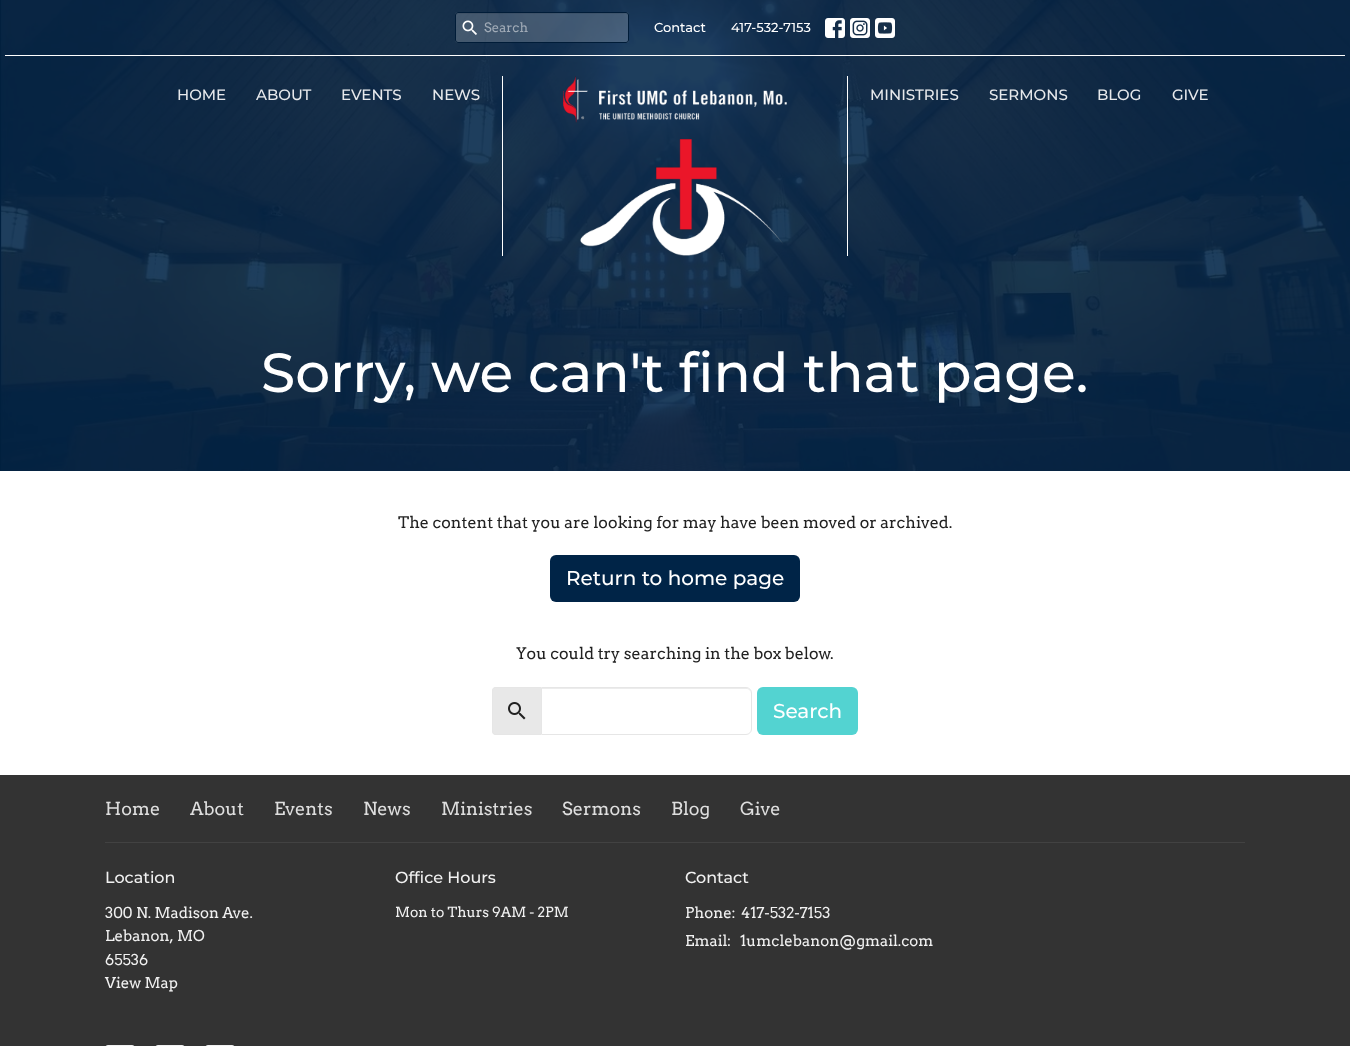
async function draw(canvas) {
	canvas.width = 1350;
	canvas.height = 1046;
	const c = canvas.getContext('2d');
	c.miterLimit = 4;
	c.fontKerning = 'normal';
	async function loadImage(src) {
		const img = new Image();
		img.src = src;
		await img.decode();
		return img;
	}

	c.fillStyle = '#fff';
	c.fillRect(0, 0, 1350, 1046);
	c.drawImage(await loadImage('img6.png'), 0, 0, 1350, 471);
	c.fillRect(5, 55, 1340, 1);
	c.fillStyle = '#ffffff33';
	c.beginPath();
	c.roundRect(455, 12, 174, 31, 3);
	c.fill();
	c.fillStyle = '#00000012';
	c.beginPath();
	c.moveTo(458, 14);
	c.lineTo(626, 14);
	c.bezierCurveTo(627, 14, 628, 15, 628, 16);
	c.bezierCurveTo(628, 15, 628, 13, 626, 13);
	c.lineTo(457, 13);
	c.bezierCurveTo(456, 14, 456, 15, 456, 16);
	c.bezierCurveTo(456, 15, 457, 14, 458, 14);
	c.closePath();
	c.fill();
	c.beginPath();
	c.roundRect(455.5, 12.5, 173, 30, 2.5);
	c.strokeStyle = '#001c38';
	c.stroke();
	c.drawImage(await loadImage('img1.png'), 462, 20, 15, 15);
	c.font = '13px Arvo';
	c.fillStyle = '#a1abb7';
	c.fillText('Search', 484, 32);
	c.font = '500 13px Montserrat';
	c.fillStyle = '#fff';
	c.fillText('Contact', 654, 32);
	c.fillText('417-532-7153', 731, 32);
	c.drawImage(await loadImage('img2.png'), 825, 18, 20, 20);
	c.drawImage(await loadImage('img3.png'), 850, 18, 20, 20);
	c.drawImage(await loadImage('img4.png'), 875, 18, 20, 20);
	c.font = '500 15px Montserrat';
	c.fillStyle = '#e7e9ec';
	for (const [text, x, y] of [
		['HOME', 177, 100],
		['ABOUT', 256, 100],
		['EVENTS', 341, 100],
		['NEWS', 432, 100],
	]) {
		c.fillText(text, x, y);
	}
	c.fillStyle = '#fff';
	c.fillRect(847, 76, 1, 180);
	c.fillRect(502, 76, 1, 180);
	c.drawImage(await loadImage('img5.png'), 563, 76, 224, 180);
	c.fillStyle = '#e7e9ec';
	for (const [text, x, y] of [
		['MINISTRIES', 870, 100],
		['SERMONS', 989, 100],
		['BLOG', 1097, 100],
		['GIVE', 1172, 100],
	]) {
		c.fillText(text, x, y);
	}
	c.font = '500 55px Montserrat';
	c.fillStyle = '#fff';
	c.fillText('Sorry, we can\'t find that page.', 261, 392);
	c.font = '16px Arvo';
	c.fillStyle = '#222';
	c.fillText('The content that you are looking for may have been moved or archived.', 398, 528);
	c.fillStyle = '#002447';
	c.beginPath();
	c.roundRect(550, 555, 250, 47, 6);
	c.fill();
	c.font = '500 20px Montserrat';
	c.fillStyle = '#fff';
	c.fillText('Return to home page', 566, 585);
	c.font = '16px Arvo';
	c.fillStyle = '#222';
	c.fillText('You could try searching in the box below.', 516, 659);
	c.fillStyle = '#e8e8e8';
	c.beginPath();
	c.roundRect(492, 687, 49, 48, [4, 0, 0, 4]);
	c.fill();
	c.fillStyle = '#e6e6e6';
	c.beginPath();
	c.moveTo(496, 687);
	c.lineTo(541, 687);
	c.lineTo(541, 735);
	c.lineTo(496, 735);
	c.bezierCurveTo(494, 735, 492, 733, 492, 731);
	c.lineTo(492, 691);
	c.bezierCurveTo(492, 689, 494, 687, 496, 687);
	c.closePath();
	c.moveTo(496, 688);
	c.lineTo(541, 688);
	c.lineTo(541, 734);
	c.lineTo(496, 734);
	c.bezierCurveTo(494, 734, 493, 733, 493, 731);
	c.lineTo(493, 691);
	c.bezierCurveTo(493, 689, 494, 688, 496, 688);
	c.closePath();
	c.fill('evenodd');
	c.drawImage(await loadImage('img7.png'), 508, 702, 18, 18);
	c.fillStyle = '#ececec';
	c.beginPath();
	c.moveTo(542, 689);
	c.lineTo(746, 689);
	c.bezierCurveTo(749, 689, 751, 691, 751, 694);
	c.bezierCurveTo(751, 691, 750, 689, 747, 688);
	c.lineTo(542, 688);
	c.closePath();
	c.fill();
	c.beginPath();
	c.roundRect(541.5, 687.5, 210, 47, [0, 5.5, 5.5, 0]);
	c.strokeStyle = '#e6e6e6';
	c.stroke();
	c.fillStyle = '#53d3d1';
	c.beginPath();
	c.roundRect(757, 687, 101, 48, 6);
	c.fill();
	c.font = '500 20px Montserrat';
	c.fillStyle = '#fff';
	c.fillText('Search', 773, 718);
	c.fillStyle = '#333';
	c.fillRect(0, 775, 1350, 271);
	c.font = '18px Arvo';
	c.fillStyle = '#dedede';
	for (const [text, x, y] of [
		['Home', 105, 815],
		['About', 190, 815],
		['Events', 274, 815],
		['News', 363, 815],
		['Ministries', 441, 815],
		['Sermons', 562, 815],
		['Blog', 671, 815],
		['Give', 740, 815],
	]) {
		c.fillText(text, x, y);
	}
	c.fillStyle = '#424242';
	c.fillRect(105, 842, 1140, 1);
	c.font = '500 16px Montserrat';
	c.fillStyle = '#f1f1f1';
	c.fillText('Location', 105, 883);
	c.font = '15px Arvo';
	for (const [text, x, y] of [
		['300 N. Madison Ave.', 105, 918],
		['Lebanon, MO', 105, 941],
		['65536', 105, 965],
		['View Map', 105, 988],
	]) {
		c.fillText(text, x, y);
	}
	c.font = '500 16px Montserrat';
	c.fillText('Office Hours', 395, 883);
	c.font = '14px Arvo';
	c.fillText('Mon to Thurs 9AM - 2PM', 395, 917);
	c.font = '500 16px Montserrat';
	c.fillText('Contact', 685, 883);
	c.font = '15px Arvo';
	for (const [text, x, y] of [
		['Phone:', 685, 918],
		['417-532-7153', 741, 918],
		['Email:', 685, 946],
		['1umclebanon@gmail.com', 740, 946],
	]) {
		c.fillText(text, x, y);
	}
	c.drawImage(await loadImage('img8.png'), 105, 1045, 30, 1);
	c.drawImage(await loadImage('img8.png'), 155, 1045, 30, 1);
	c.drawImage(await loadImage('img8.png'), 205, 1045, 30, 1);
}

draw(document.querySelector('canvas'));
